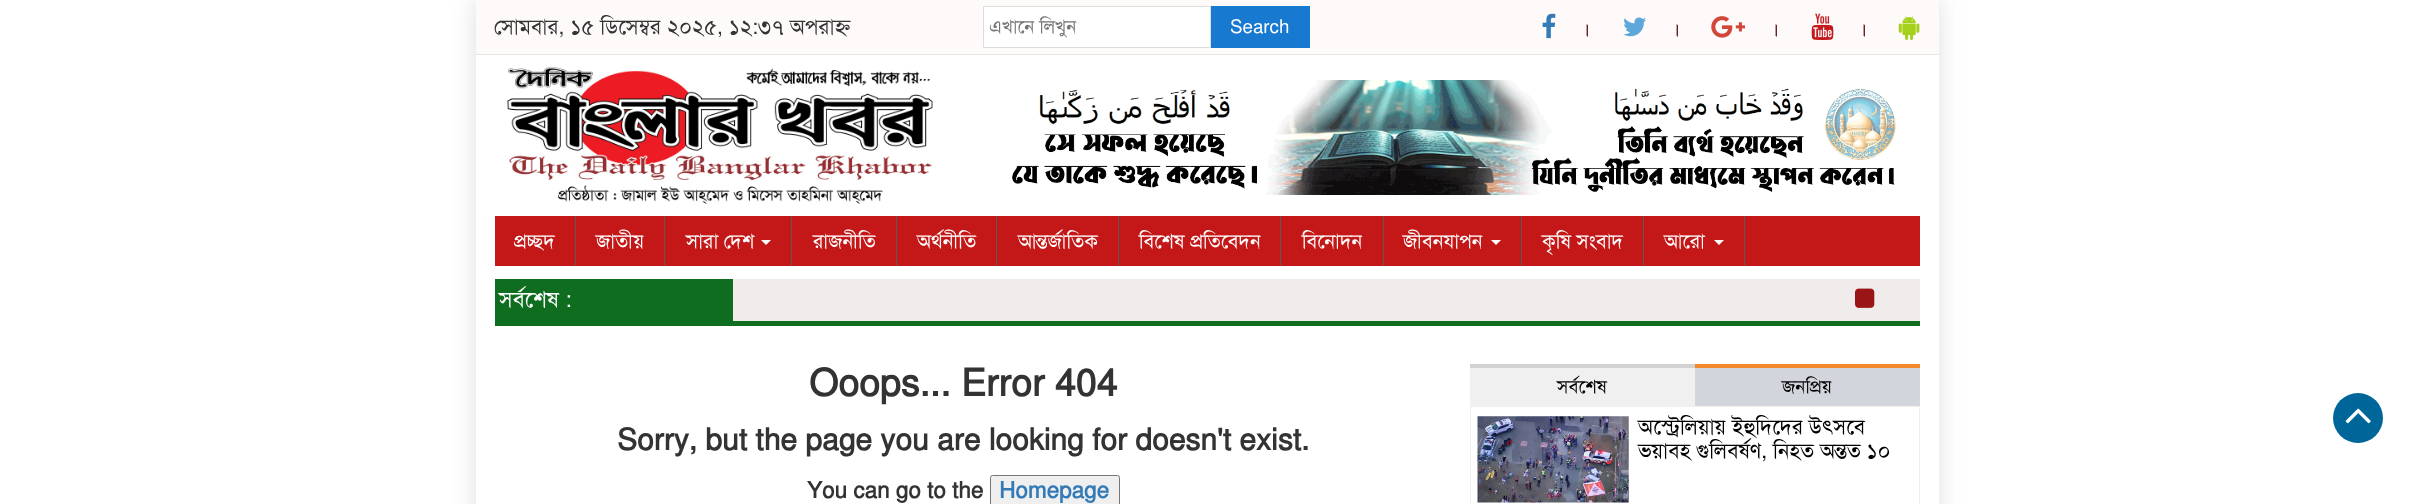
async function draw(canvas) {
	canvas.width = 2413;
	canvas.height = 504;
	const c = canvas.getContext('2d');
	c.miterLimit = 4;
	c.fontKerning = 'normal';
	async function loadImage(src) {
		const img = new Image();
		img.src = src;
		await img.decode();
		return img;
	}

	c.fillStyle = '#fff';
	c.fillRect(0, 0, 2413, 504);
	c.fillStyle = '#ddd';
	c.filter = 'blur(12.5px)';
	c.beginPath();
	c.rect(476, 0, 1463, 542);
	c.fill();
	c.filter = 'none';
	for (const [x, y, w, h, color] of [
		[476, 55, 1463, 449, '#fff'],
		[476, 0, 1463, 54, '#fefafa'],
		[476, 54, 1463, 1, '#e4e4e4'],
	]) {
		c.fillStyle = color;
		c.fillRect(x, y, w, h);
	}
	c.font = '21.25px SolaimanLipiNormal';
	c.fillStyle = '#333';
	c.fillText('সোমবার, ১৫ ডিসেম্বর ২০২৫, ১২:৩৭ অপরাহ্ন', 494, 34);
	c.fillStyle = '#fff';
	c.beginPath();
	c.rect(983.5, 6.5, 227, 41);
	c.fill();
	c.strokeStyle = '#ddd';
	c.stroke();
	c.font = '18.75px SolaimanLipiNormal';
	c.fillStyle = '#757575';
	c.fillText('এখানে লিখুন', 989, 33);
	c.fillStyle = '#1879d0';
	c.fillRect(1211, 6, 99, 42);
	c.fillStyle = '#fff';
	c.fillText('Search', 1230, 33);
	c.drawImage(await loadImage('img1.png'), 1542, 13, 14, 26);
	c.font = '21.25px SolaimanLipiNormal';
	c.fillStyle = '#4d0202';
	c.fillText('।', 1581, 36);
	c.drawImage(await loadImage('img2.png'), 1623, 17, 23, 20);
	c.fillText('।', 1671, 36);
	c.drawImage(await loadImage('img3.png'), 1711, 16, 34, 22);
	c.fillText('।', 1770, 36);
	c.drawImage(await loadImage('img4.png'), 1811, 13, 23, 27);
	c.fillText('।', 1858, 36);
	c.drawImage(await loadImage('img5.png'), 1898, 15, 22, 25);
	c.drawImage(await loadImage('img6.png'), 507, 67, 426, 137);
	c.drawImage(await loadImage('img7.png'), 1012, 80, 884, 115);
	c.fillStyle = '#c41717';
	c.fillRect(495, 216, 1425, 50);
	c.fillStyle = '#5b5a50';
	c.fillRect(575, 216, 1, 50);
	c.font = '20px SolaimanLipiNormal';
	c.fillStyle = '#fff';
	c.fillText('প্রচ্ছদ', 514, 248);
	c.fillStyle = '#5b5a50';
	c.fillRect(664, 216, 1, 50);
	c.fillStyle = '#fff';
	c.fillText('জাতীয়', 596, 248);
	c.fillStyle = '#5b5a50';
	c.fillRect(791, 216, 1, 50);
	c.fillStyle = '#fff';
	c.fillText('সারা দেশ', 686, 248);
	c.beginPath();
	c.moveTo(761, 240);
	c.lineTo(771, 240);
	c.lineTo(766, 245);
	c.closePath();
	c.fill();
	c.fillStyle = '#5b5a50';
	c.fillRect(896, 216, 1, 50);
	c.fillStyle = '#fff';
	c.fillText('রাজনীতি', 813, 248);
	c.fillStyle = '#5b5a50';
	c.fillRect(996, 216, 1, 50);
	c.fillStyle = '#fff';
	c.fillText('অর্থনীতি', 917, 248);
	c.fillStyle = '#5b5a50';
	c.fillRect(1118, 216, 1, 50);
	c.fillStyle = '#fff';
	c.fillText('আন্তর্জাতিক', 1018, 248);
	c.fillStyle = '#5b5a50';
	c.fillRect(1280, 216, 1, 50);
	c.fillStyle = '#fff';
	c.fillText('বিশেষ প্রতিবেদন', 1139, 248);
	c.fillStyle = '#5b5a50';
	c.fillRect(1383, 216, 1, 50);
	c.fillStyle = '#fff';
	c.fillText('বিনোদন', 1302, 248);
	c.fillStyle = '#5b5a50';
	c.fillRect(1521, 216, 1, 50);
	c.fillStyle = '#fff';
	c.fillText('জীবনযাপন', 1403, 248);
	c.beginPath();
	c.moveTo(1491, 240);
	c.lineTo(1501, 240);
	c.lineTo(1496, 245);
	c.closePath();
	c.fill();
	c.fillStyle = '#5b5a50';
	c.fillRect(1643, 216, 1, 50);
	c.fillStyle = '#fff';
	c.fillText('কৃষি সংবাদ', 1542, 248);
	c.fillStyle = '#5b5a50';
	c.fillRect(1744, 216, 1, 50);
	c.fillStyle = '#fff';
	c.fillText('আরো', 1664, 248);
	c.beginPath();
	c.moveTo(1714, 240);
	c.lineTo(1724, 240);
	c.lineTo(1719, 245);
	c.closePath();
	c.fill();
	c.fillStyle = '#0f6d1f';
	c.fillRect(495, 279, 238, 47);
	c.font = '22.5px SolaimanLipiNormal';
	c.fillStyle = '#fff';
	c.fillText('সর্বশেষ :', 499, 307);
	c.fillStyle = '#f0ecec';
	c.fillRect(733, 279, 1187, 42);
	c.fillStyle = '#0f6d1f';
	c.fillRect(733, 321, 1187, 5);
	c.drawImage(await loadImage('img8.png'), 1855, 288, 20, 20);
	c.font = 'bold 37.5px SolaimanLipiNormal';
	c.fillStyle = '#333';
	c.fillText('Ooops... Error 404', 809, 396);
	c.font = 'bold 30px SolaimanLipiNormal';
	c.fillText('Sorry, but the page you are looking for doesn\'t exist.', 617, 450);
	c.font = 'bold 22.5px SolaimanLipiNormal';
	c.fillText('You can go to the', 807, 498);
	c.fillStyle = '#efefef';
	c.beginPath();
	c.roundRect(990.5, 475.5, 129, 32, 2);
	c.fill();
	c.strokeStyle = '#767676';
	c.stroke();
	c.fillStyle = '#337ab7';
	c.fillText('Homepage', 999, 498);
	for (const [x, y, w, h, color] of [
		[1695, 368, 225, 38, '#d2d5db'],
		[1470, 368, 225, 38, '#f0f0f0'],
		[1470, 364, 225, 4, '#d2d2d2'],
	]) {
		c.fillStyle = color;
		c.fillRect(x, y, w, h);
	}
	c.font = '18.75px SolaimanLipiNormal';
	c.fillStyle = '#000';
	c.fillText('সর্বশেষ', 1557, 393);
	c.fillStyle = '#f28a2d';
	c.fillRect(1695, 364, 225, 4);
	c.fillStyle = '#000';
	c.fillText('জনপ্রিয়', 1782, 393);
	c.strokeStyle = '#f0eeee';
	c.strokeRect(1470.5, 406.5, 449, 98);
	c.drawImage(await loadImage('img9.png'), 1477, 416, 152, 87);
	c.font = '21.25px SolaimanLipiNormal';
	c.fillText('অস্ট্রেলিয়ায় ইহুদিদের উৎসবে', 1638, 434);
	c.fillText('ভয়াবহ গুলিবর্ষণ, নিহত অন্তত ১০', 1638, 458);
	c.fillStyle = '#069';
	c.beginPath();
	c.arc(2358, 418, 25, 0, 2 * Math.PI);
	c.fill();
	c.drawImage(await loadImage('img10.png'), 2345, 408, 26, 16);
}

draw(document.querySelector('canvas'));
